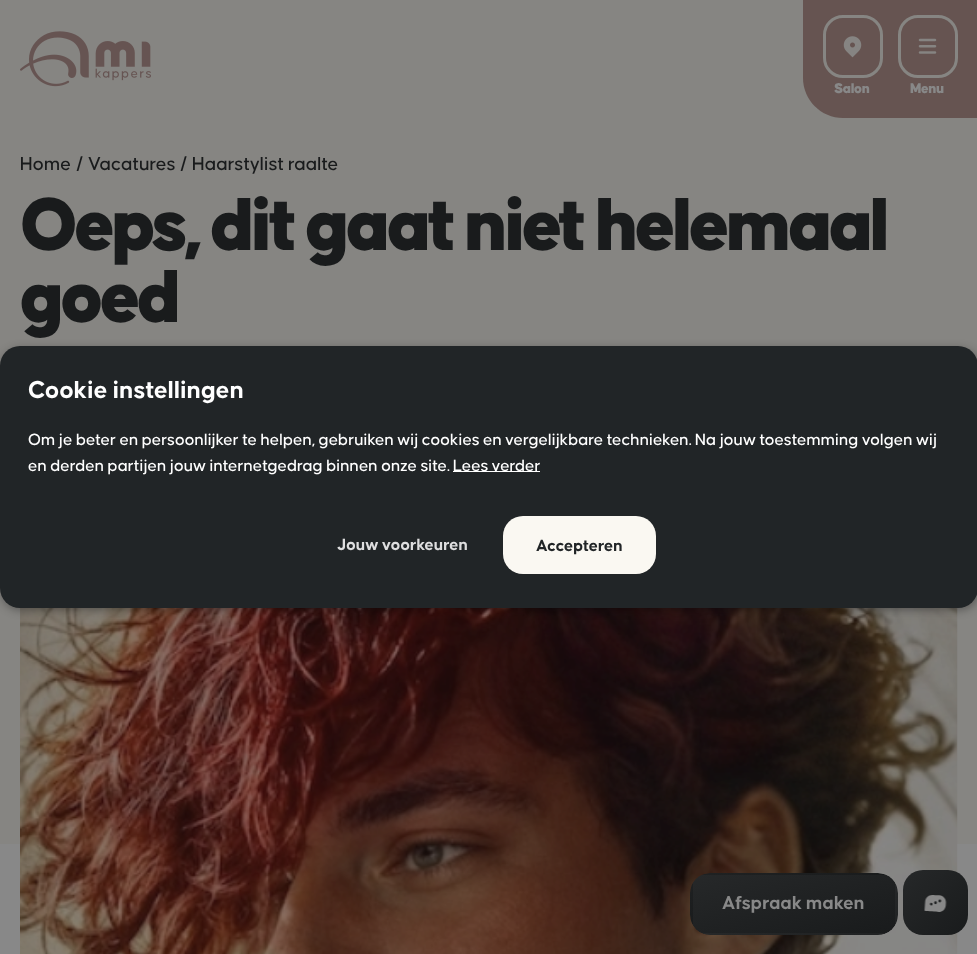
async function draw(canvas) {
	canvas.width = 977;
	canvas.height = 954;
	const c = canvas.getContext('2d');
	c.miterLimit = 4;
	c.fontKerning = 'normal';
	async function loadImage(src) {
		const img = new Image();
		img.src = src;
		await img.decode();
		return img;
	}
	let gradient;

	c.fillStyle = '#868582';
	c.fillRect(0, 0, 977, 954);
	c.drawImage(await loadImage('img1.png'), 20, 31, 131, 56);
	c.fillStyle = '#665451';
	c.beginPath();
	c.moveTo(803, 0);
	c.lineTo(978, 0);
	c.lineTo(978, 118);
	c.lineTo(843, 118);
	c.bezierCurveTo(821, 118, 803, 100, 803, 78);
	c.closePath();
	c.fill();
	c.beginPath();
	c.roundRect(824.5, 16.5, 57, 60, 18.5);
	c.strokeStyle = '#868582';
	c.lineWidth = 3;
	c.stroke();
	c.drawImage(await loadImage('img2.png'), 843, 36, 19, 22);
	c.letterSpacing = '-0.5px';
	c.font = '900 15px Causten';
	c.fillStyle = '#888';
	c.fillText('Salon', 834, 93);
	c.beginPath();
	c.roundRect(899.5, 16.5, 57, 60, 18.5);
	c.stroke();
	c.drawImage(await loadImage('img3.png'), 918, 38, 19, 16);
	c.fillText('Menu', 910, 93);
	c.fillRect(0, 844, 977, 110);
	c.letterSpacing = '0px';
	c.font = '500 20px Causten';
	c.fillStyle = '#191b1c';
	for (const [text, x, y] of [
		['Home', 20, 170],
		['/', 76, 170],
		['Vacatures', 88, 170],
		['/', 180, 170],
		['Haarstylist raalte', 192, 170],
	]) {
		c.fillText(text, x, y);
	}
	c.letterSpacing = '-4px';
	c.font = '900 80px Causten';
	c.fillText('Oeps, dit gaat niet helemaal', 20, 250);
	c.fillText('goed', 20, 322);
	c.drawImage(await loadImage('img4.png'), 20, 608, 938, 346);
	c.fillStyle = '#00000059';
	c.filter = 'blur(5px)';
	c.beginPath();
	c.roundRect(1, 349, 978, 261, 20);
	c.fill();
	c.filter = 'none';
	c.fillStyle = '#212527';
	c.beginPath();
	c.roundRect(0, 346, 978, 262, 20);
	c.fill();
	c.letterSpacing = '0px';
	c.font = 'bold 26.25px Causten';
	c.fillStyle = '#fff';
	c.fillText('Cookie instellingen', 28, 398);
	c.font = '500 17.5px Causten';
	c.fillText('Om je beter en persoonlijker te helpen, gebruiken wij cookies en vergelijkbare technieken. Na jouw toestemming volgen wij', 28, 445);
	c.fillText('en derden partijen jouw internetgedrag binnen onze site.', 28, 471);
	c.fillRect(453, 471, 87, 1);
	c.fillText('Lees verder', 453, 471);
	c.font = 'bold 17.5px Causten';
	c.fillStyle = '#dededf';
	c.fillText('Jouw voorkeuren', 337, 550);
	c.fillStyle = '#faf8f2';
	c.beginPath();
	c.roundRect(503, 516, 153, 58, 20);
	c.fill();
	c.fillStyle = '#212527';
	c.fillText('Accepteren', 536, 551);
	c.save();
	c.beginPath();
	c.roundRect(690, 873, 208, 62, 20);
	c.clip();
	c.beginPath();
	c.roundRect(690, 873, 208, 62, 20);
	c.clip();
	gradient = c.createLinearGradient(809, 899, 779, 793);
	gradient.addColorStop(0, '#191b1c');
	gradient.addColorStop(1, '#262829');
	c.fillStyle = gradient;
	c.fillRect(702, 873, 184, 2);
	gradient = c.createLinearGradient(606, 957, 576, 851);
	gradient.addColorStop(0, '#191b1c');
	gradient.addColorStop(1, '#262829');
	c.fillStyle = gradient;
	c.fillRect(690, 875, 3, 58);
	gradient = c.createLinearGradient(809, 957, 779, 851);
	gradient.addColorStop(0, '#191b1c');
	gradient.addColorStop(1, '#262829');
	c.fillStyle = gradient;
	c.fillRect(693, 875, 202, 58);
	gradient = c.createLinearGradient(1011, 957, 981, 851);
	gradient.addColorStop(0, '#191b1c');
	gradient.addColorStop(1, '#262829');
	c.fillStyle = gradient;
	c.fillRect(895, 875, 3, 58);
	gradient = c.createLinearGradient(809, 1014, 779, 908);
	gradient.addColorStop(0, '#191b1c');
	gradient.addColorStop(1, '#262829');
	c.fillStyle = gradient;
	c.fillRect(702, 933, 184, 2);
	c.restore();
	c.font = 'bold 20px Causten';
	c.fillStyle = '#888';
	c.fillText('Afspraak maken', 722, 909);
	gradient = c.createLinearGradient(968, 935, 903, 870);
	gradient.addColorStop(0, '#191b1c');
	gradient.addColorStop(1, '#262829');
	c.fillStyle = gradient;
	c.beginPath();
	c.roundRect(903, 870, 65, 65, 20);
	c.fill();
	c.drawImage(await loadImage('img5.png'), 924, 895, 23, 17);
}

draw(document.querySelector('canvas'));
